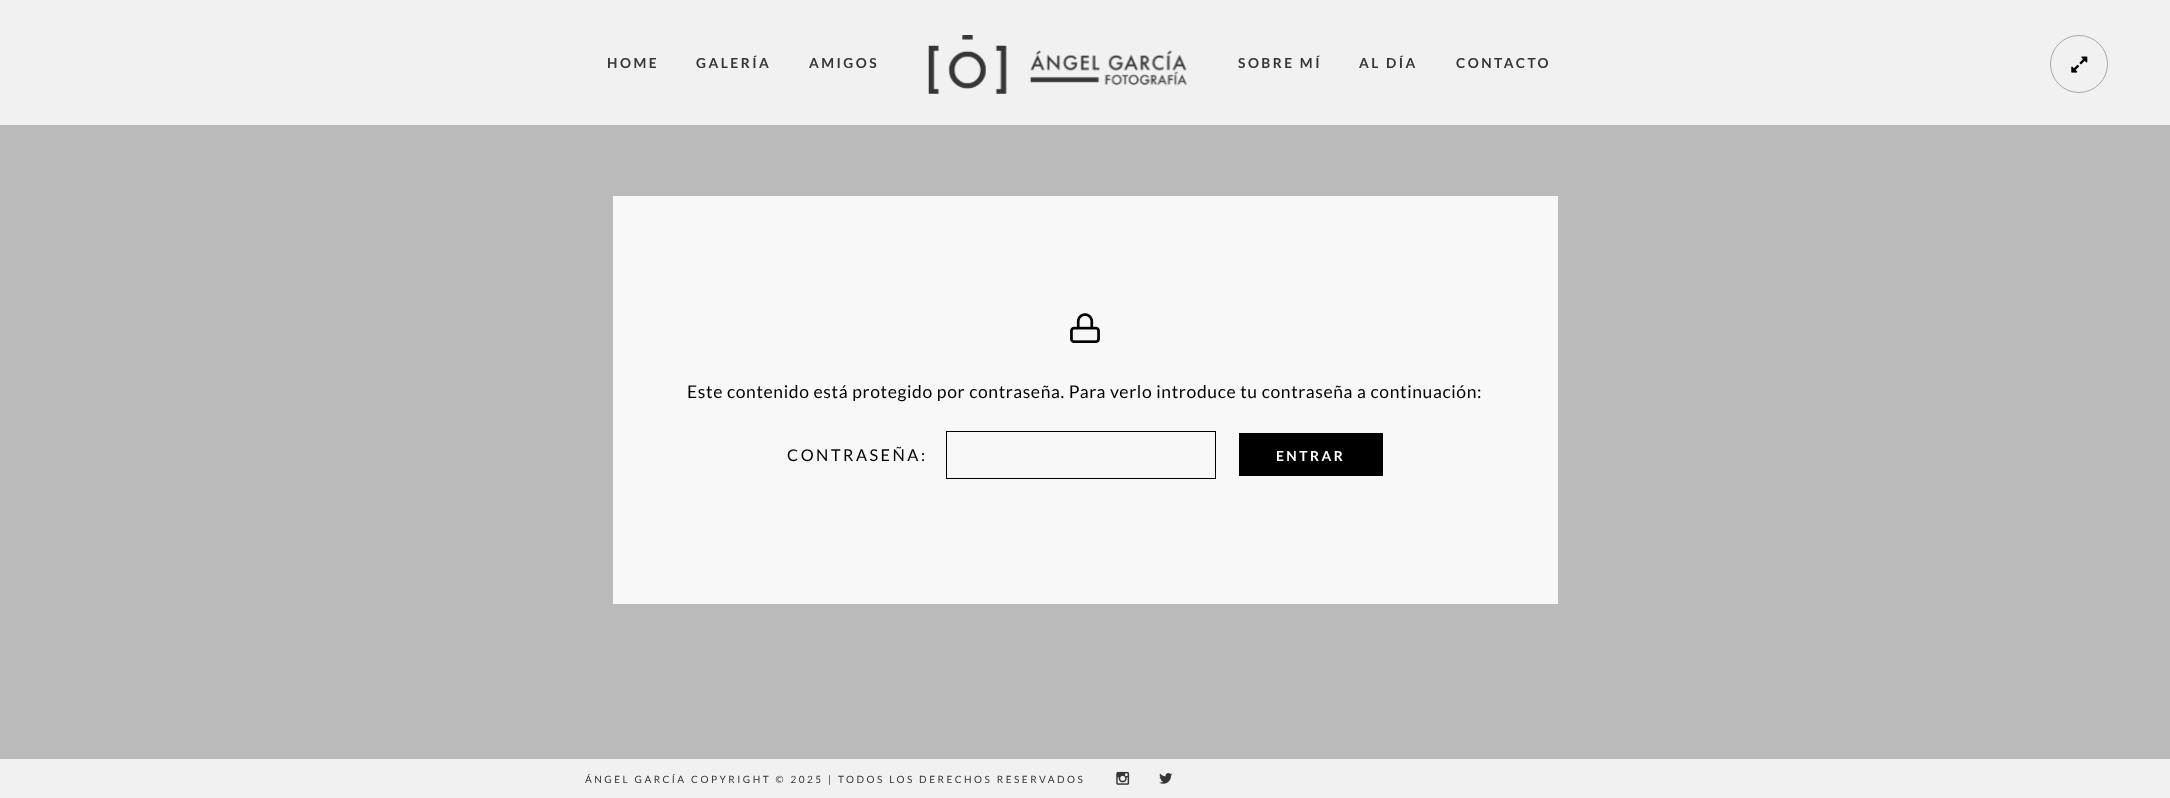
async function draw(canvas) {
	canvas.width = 2170;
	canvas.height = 798;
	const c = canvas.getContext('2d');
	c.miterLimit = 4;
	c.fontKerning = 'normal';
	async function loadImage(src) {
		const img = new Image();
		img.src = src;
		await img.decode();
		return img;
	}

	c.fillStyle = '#bababa';
	c.fillRect(0, 0, 2170, 798);
	c.fillStyle = '#f1f1f1';
	c.fillRect(0, 0, 2170, 125);
	c.letterSpacing = '2.5px';
	c.font = 'bold 13.75px Lato';
	c.fillStyle = '#363636';
	for (const [text, x, y] of [
		['HOME', 607, 68],
		['GALERÍA', 696, 68],
		['AMIGOS', 809, 68],
	]) {
		c.fillText(text, x, y);
	}
	c.drawImage(await loadImage('img1.png'), 928, 35, 259, 59);
	for (const [text, x, y] of [
		['SOBRE MÍ', 1238, 68],
		['AL DÍA', 1359, 68],
		['CONTACTO', 1456, 68],
	]) {
		c.fillText(text, x, y);
	}
	c.beginPath();
	c.arc(2079, 64, 28.5, 0, 2 * Math.PI);
	c.strokeStyle = '#a9a9a9';
	c.stroke();
	c.drawImage(await loadImage('img2.png'), 2071, 56, 17, 17);
	c.fillStyle = '#f8f8f8';
	c.fillRect(613, 196, 945, 408);
	c.drawImage(await loadImage('img3.png'), 1070, 313, 30, 30);
	c.letterSpacing = '0.62px';
	c.font = '17.5px Lato';
	c.fillStyle = '#000';
	c.fillText('Este contenido está protegido por contraseña. Para verlo introduce tu contraseña a continuación:', 687, 398);
	c.letterSpacing = '2.5px';
	c.font = '16.25px Lato';
	c.fillText('CONTRASEÑA:', 787, 461);
	c.strokeStyle = '#000';
	c.strokeRect(946.5, 431.5, 269, 47);
	c.fillRect(1239, 433, 144, 43);
	c.font = 'bold 13.75px Lato';
	c.fillStyle = '#fff';
	c.fillText('ENTRAR', 1276, 461);
	c.fillStyle = '#f1f1f1';
	c.fillRect(0, 759, 2170, 39);
	c.font = '10px Lato';
	c.fillStyle = '#363636';
	c.fillText('ÁNGEL GARCÍA COPYRIGHT © 2025 | TODOS LOS DERECHOS RESERVADOS', 585, 783);
	c.drawImage(await loadImage('img4.png'), 1116, 771, 14, 14);
	c.drawImage(await loadImage('img5.png'), 1159, 773, 14, 11);
}

draw(document.querySelector('canvas'));
